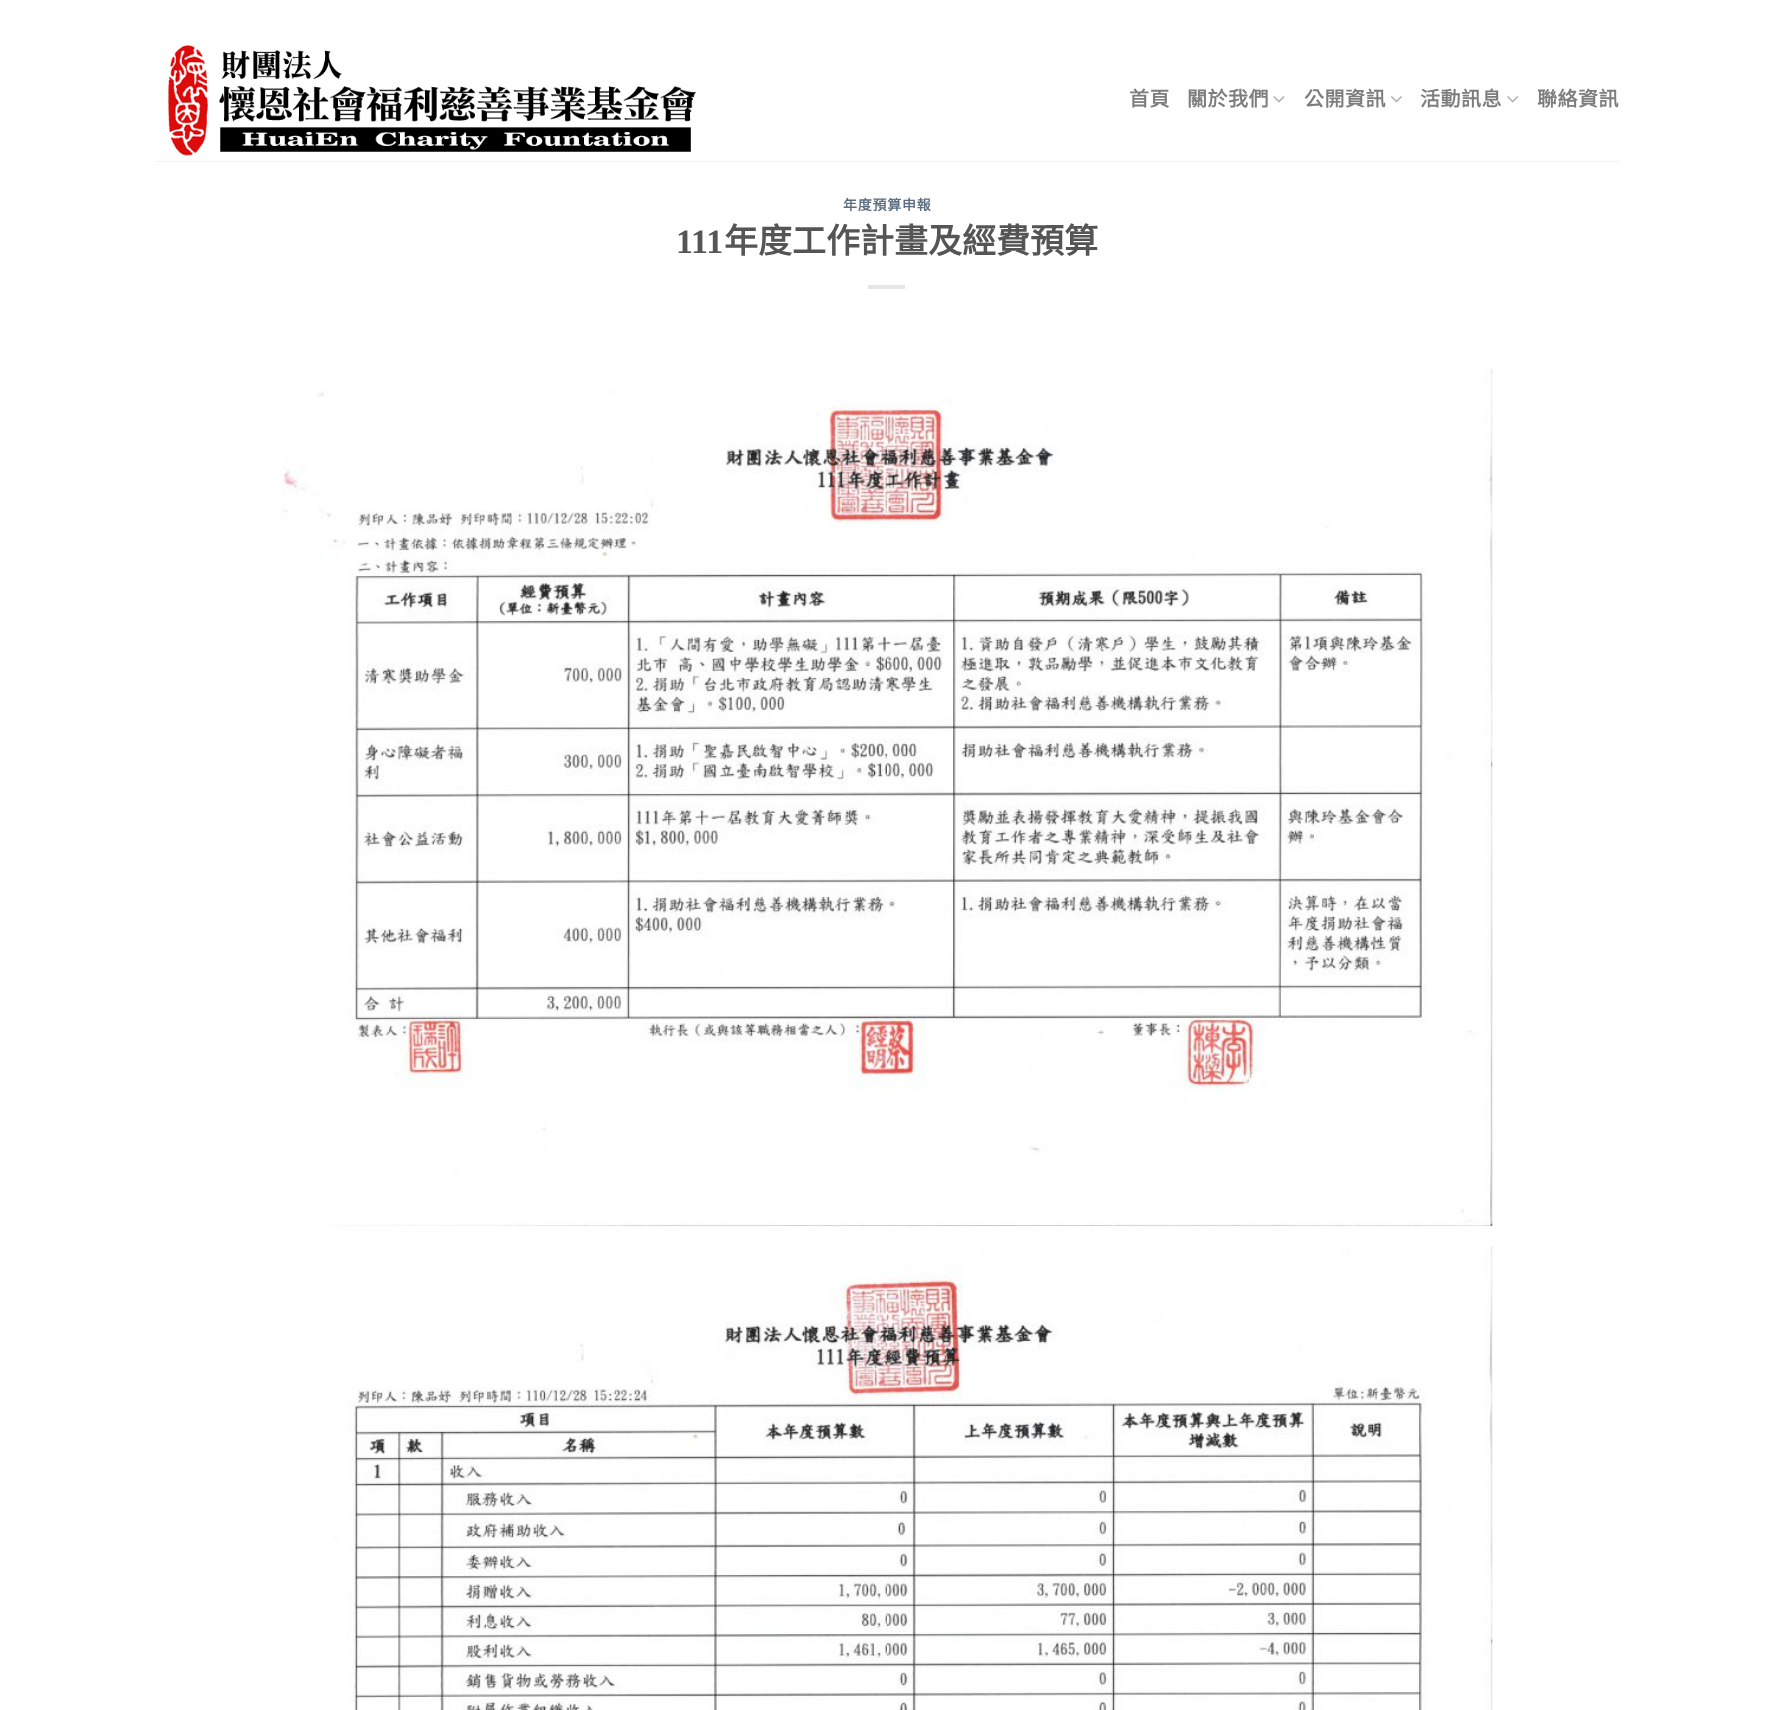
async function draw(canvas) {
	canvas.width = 1773;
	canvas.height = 1710;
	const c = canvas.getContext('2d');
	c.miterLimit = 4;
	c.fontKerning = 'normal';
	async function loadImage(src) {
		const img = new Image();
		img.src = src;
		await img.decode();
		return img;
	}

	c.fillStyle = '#fff';
	c.fillRect(0, 0, 1773, 1710);
	c.drawImage(await loadImage('img1.png'), 168, 45, 528, 111);
	c.letterSpacing = '0.5px';
	c.font = 'bold 20px Noto Sans CJK TC';
	c.fillStyle = '#7d7d7d';
	c.fillText('首頁', 1129, 106);
	c.fillText('關於我們', 1187, 106);
	c.drawImage(await loadImage('img2.png'), 1273, 96, 12, 7);
	c.fillText('公開資訊', 1304, 106);
	c.drawImage(await loadImage('img3.png'), 1391, 96, 11, 7);
	c.fillText('活動訊息', 1420, 106);
	c.drawImage(await loadImage('img4.png'), 1507, 96, 12, 7);
	c.fillText('聯絡資訊', 1537, 106);
	c.fillStyle = '#f1f1f1';
	c.fillRect(156, 161, 1463, 1);
	c.letterSpacing = '0.75px';
	c.font = 'bold 14px Noto Sans CJK TC';
	c.fillStyle = '#5c6d81';
	c.fillText('年度預算申報', 843, 210);
	c.letterSpacing = '0px';
	c.font = 'bold 34px Liberation Serif';
	c.fillStyle = '#555';
	c.fillText('111', 676, 253);
	c.font = 'bold 34px Noto Sans CJK TC';
	c.fillText('年度工作計畫及經費預算', 724, 253);
	c.fillStyle = '#e6e6e6';
	c.fillRect(868, 285, 37, 4);
	c.drawImage(await loadImage('img5.png'), 281, 369, 1212, 858);
	c.drawImage(await loadImage('img6.png'), 334, 1246, 1159, 464);
}

draw(document.querySelector('canvas'));
